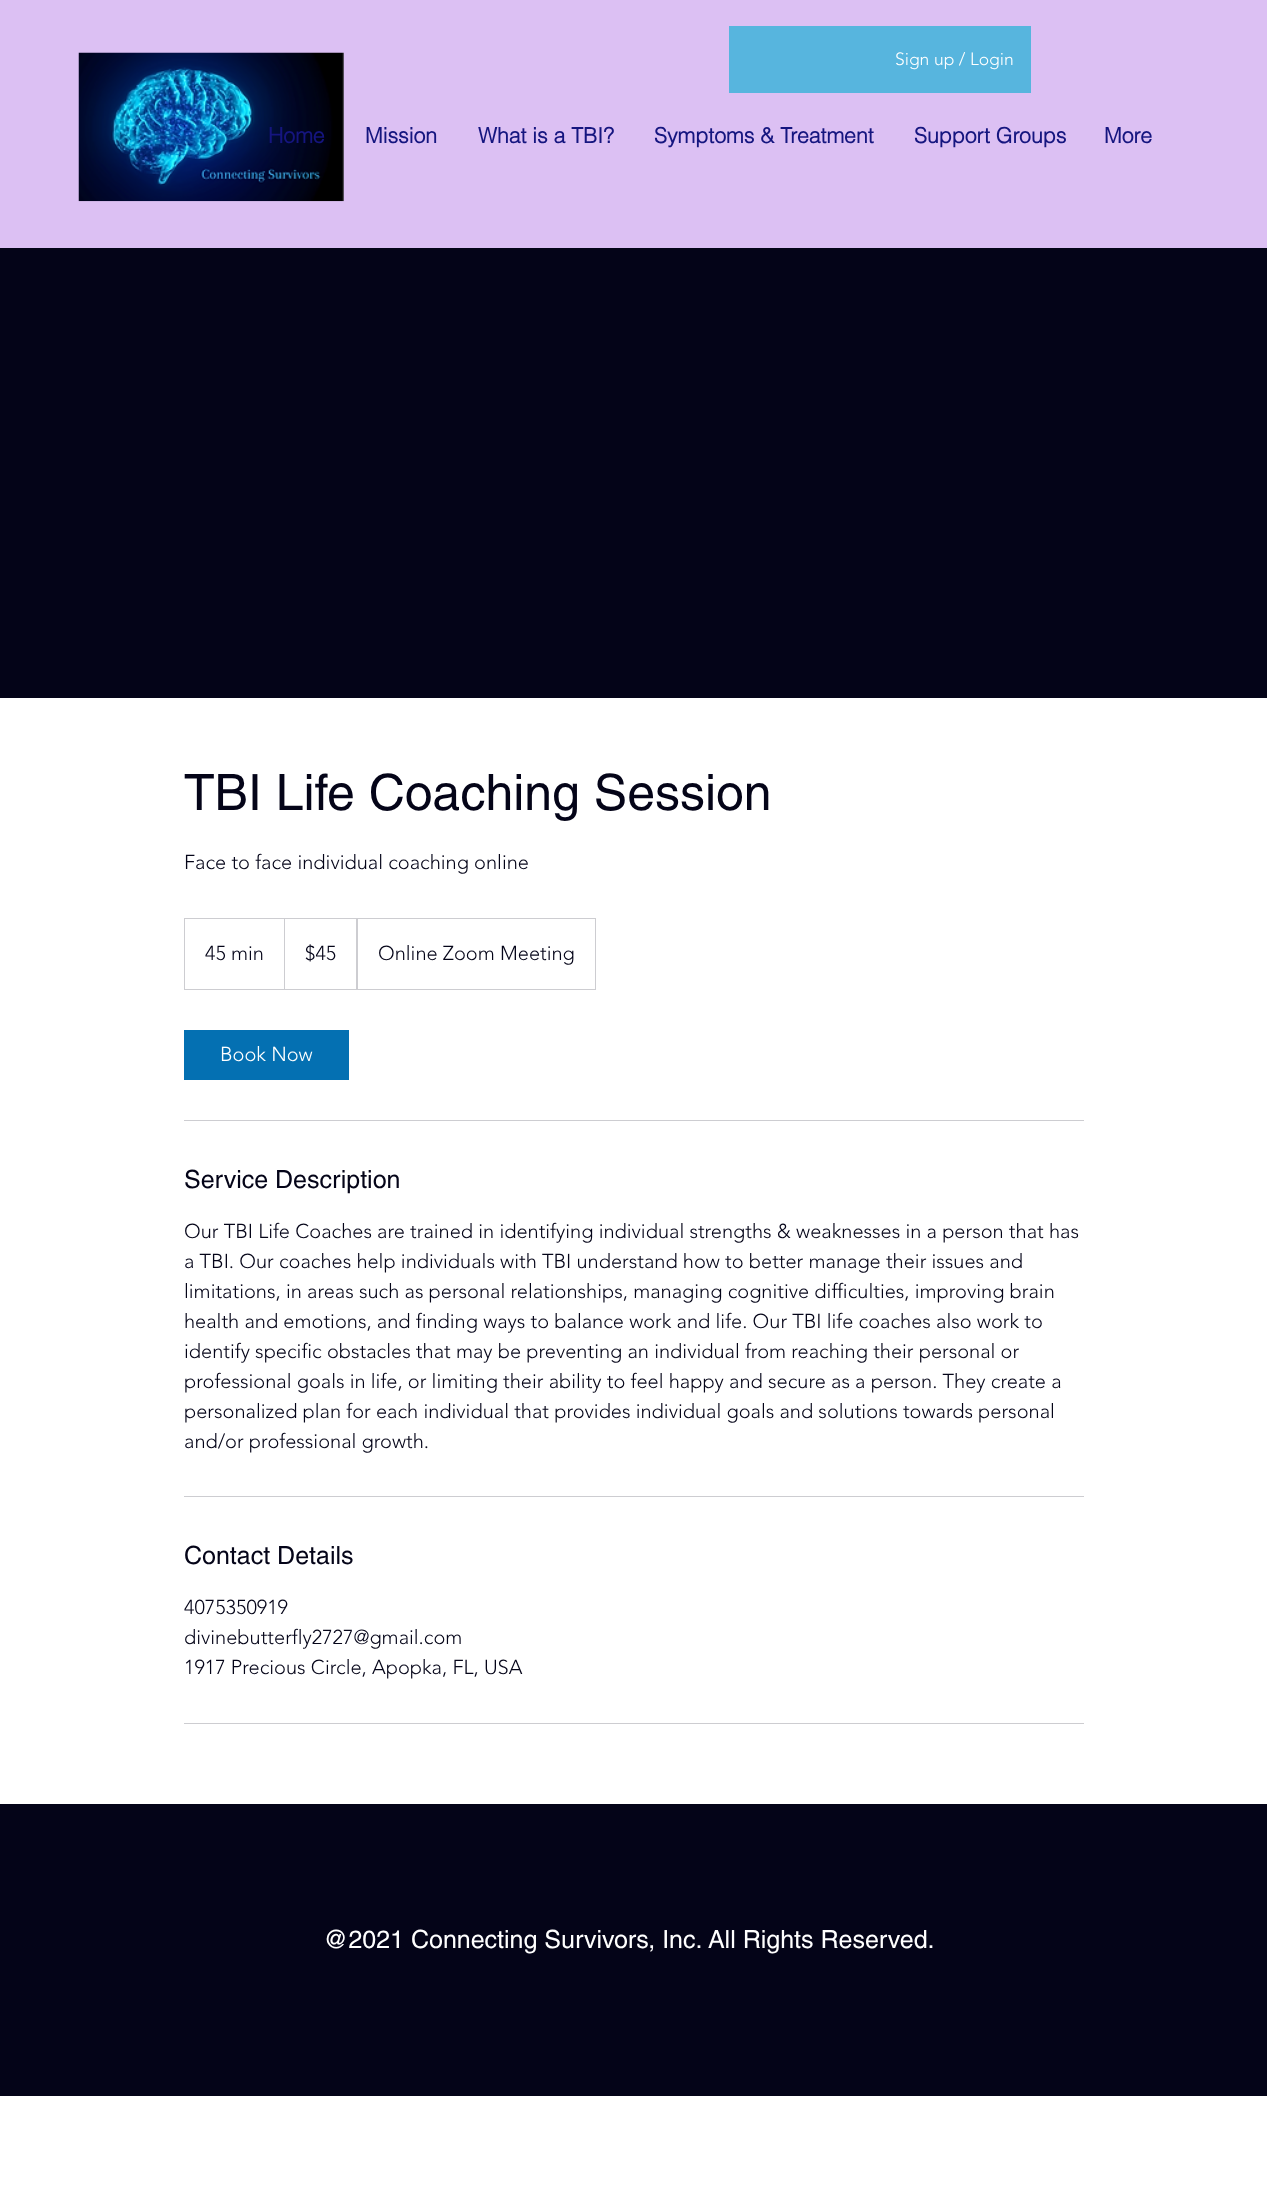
async function draw(canvas) {
	canvas.width = 1267;
	canvas.height = 2212;
	const c = canvas.getContext('2d');
	c.miterLimit = 4;
	c.fontKerning = 'normal';
	async function loadImage(src) {
		const img = new Image();
		img.src = src;
		await img.decode();
		return img;
	}

	c.fillStyle = '#fff';
	c.fillRect(0, 0, 1267, 2212);
	c.fillStyle = '#dcc0f3';
	c.fillRect(0, 0, 1267, 248);
	c.drawImage(await loadImage('img1.png'), 78, 52, 266, 150);
	c.fillStyle = '#57b5de';
	c.fillRect(729, 26, 302, 67);
	c.font = '300 17.5px "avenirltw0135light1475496"';
	c.fillStyle = '#fff';
	c.fillText('Sign up / Login', 895, 65);
	c.font = 'bold 21.25px helvetica';
	c.fillStyle = '#15157f';
	for (const [text, x, y] of [
		['Home', 268, 143],
		['Mission', 365, 143],
		['What is a TBI?', 478, 143],
		['Symptoms & Treatment', 654, 143],
		['Support Groups', 914, 143],
		['More', 1104, 143],
	]) {
		c.fillText(text, x, y);
	}
	c.fillStyle = '#040418';
	c.fillRect(0, 248, 1267, 450);
	c.font = '50px helvetica';
	c.fillText('TBI Life Coaching Session', 184, 810);
	c.font = '300 20px "avenirltw0135light1475496"';
	c.fillText('Face to face individual coaching online', 184, 869);
	c.strokeStyle = '#cdcdd1';
	c.strokeRect(184.5, 918.5, 411, 71);
	c.fillText('45 min', 205, 960);
	c.fillStyle = '#cdcdd1';
	c.beginPath();
	c.moveTo(284, 989);
	c.lineTo(284, 918);
	c.lineTo(285, 919);
	c.lineTo(285, 989);
	c.closePath();
	c.fill();
	c.fillStyle = '#040418';
	c.fillText('$45', 305, 960);
	c.fillStyle = '#cdcdd1';
	c.beginPath();
	c.moveTo(356, 989);
	c.lineTo(356, 918);
	c.lineTo(358, 919);
	c.lineTo(358, 989);
	c.closePath();
	c.fill();
	c.fillStyle = '#040418';
	c.fillText('Online Zoom Meeting', 378, 960);
	c.fillStyle = '#0470b2';
	c.fillRect(184, 1030, 165, 50);
	c.fillStyle = '#fff';
	c.fillText('Book Now', 220, 1061);
	c.fillStyle = '#cdcdd1';
	c.fillRect(184, 1120, 900, 1);
	c.font = '25px helvetica';
	c.fillStyle = '#040418';
	c.fillText('Service Description', 184, 1188);
	c.font = '300 20px "avenirltw0135light1475496"';
	for (const [text, x, y] of [
		['Our TBI Life Coaches are trained in identifying individual strengths & weaknesses in a person that has', 184, 1238],
		['a TBI. Our coaches help individuals with TBI understand how to better manage their issues and', 184, 1268],
		['limitations, in areas such as personal relationships, managing cognitive difficulties, improving brain', 184, 1298],
		['health and emotions, and finding ways to balance work and life. Our TBI life coaches also work to', 184, 1328],
		['identify specific obstacles that may be preventing an individual from reaching their personal or', 184, 1358],
		['professional goals in life, or limiting their ability to feel happy and secure as a person. They create a', 184, 1388],
		['personalized plan for each individual that provides individual goals and solutions towards personal', 184, 1418],
		['and/or professional growth.', 184, 1448],
	]) {
		c.fillText(text, x, y);
	}
	c.fillStyle = '#cdcdd1';
	c.fillRect(184, 1496, 900, 1);
	c.font = '25px helvetica';
	c.fillStyle = '#040418';
	c.fillText('Contact Details', 184, 1564);
	c.font = '300 20px "avenirltw0135light1475496"';
	for (const [text, x, y] of [
		['4075350919', 184, 1614],
		['divinebutterfly2727@gmail.com', 184, 1644],
		['1917 Precious Circle, Apopka, FL, USA', 184, 1674],
	]) {
		c.fillText(text, x, y);
	}
	c.fillStyle = '#cdcdd1';
	c.fillRect(184, 1723, 900, 1);
	c.fillStyle = '#040418';
	c.fillRect(0, 1804, 1267, 292);
	c.font = '25px helvetica';
	c.fillStyle = '#fff';
	c.fillText('@2021 Connecting Survivors, Inc. All Rights Reserved.', 323, 1948);
}

draw(document.querySelector('canvas'));
